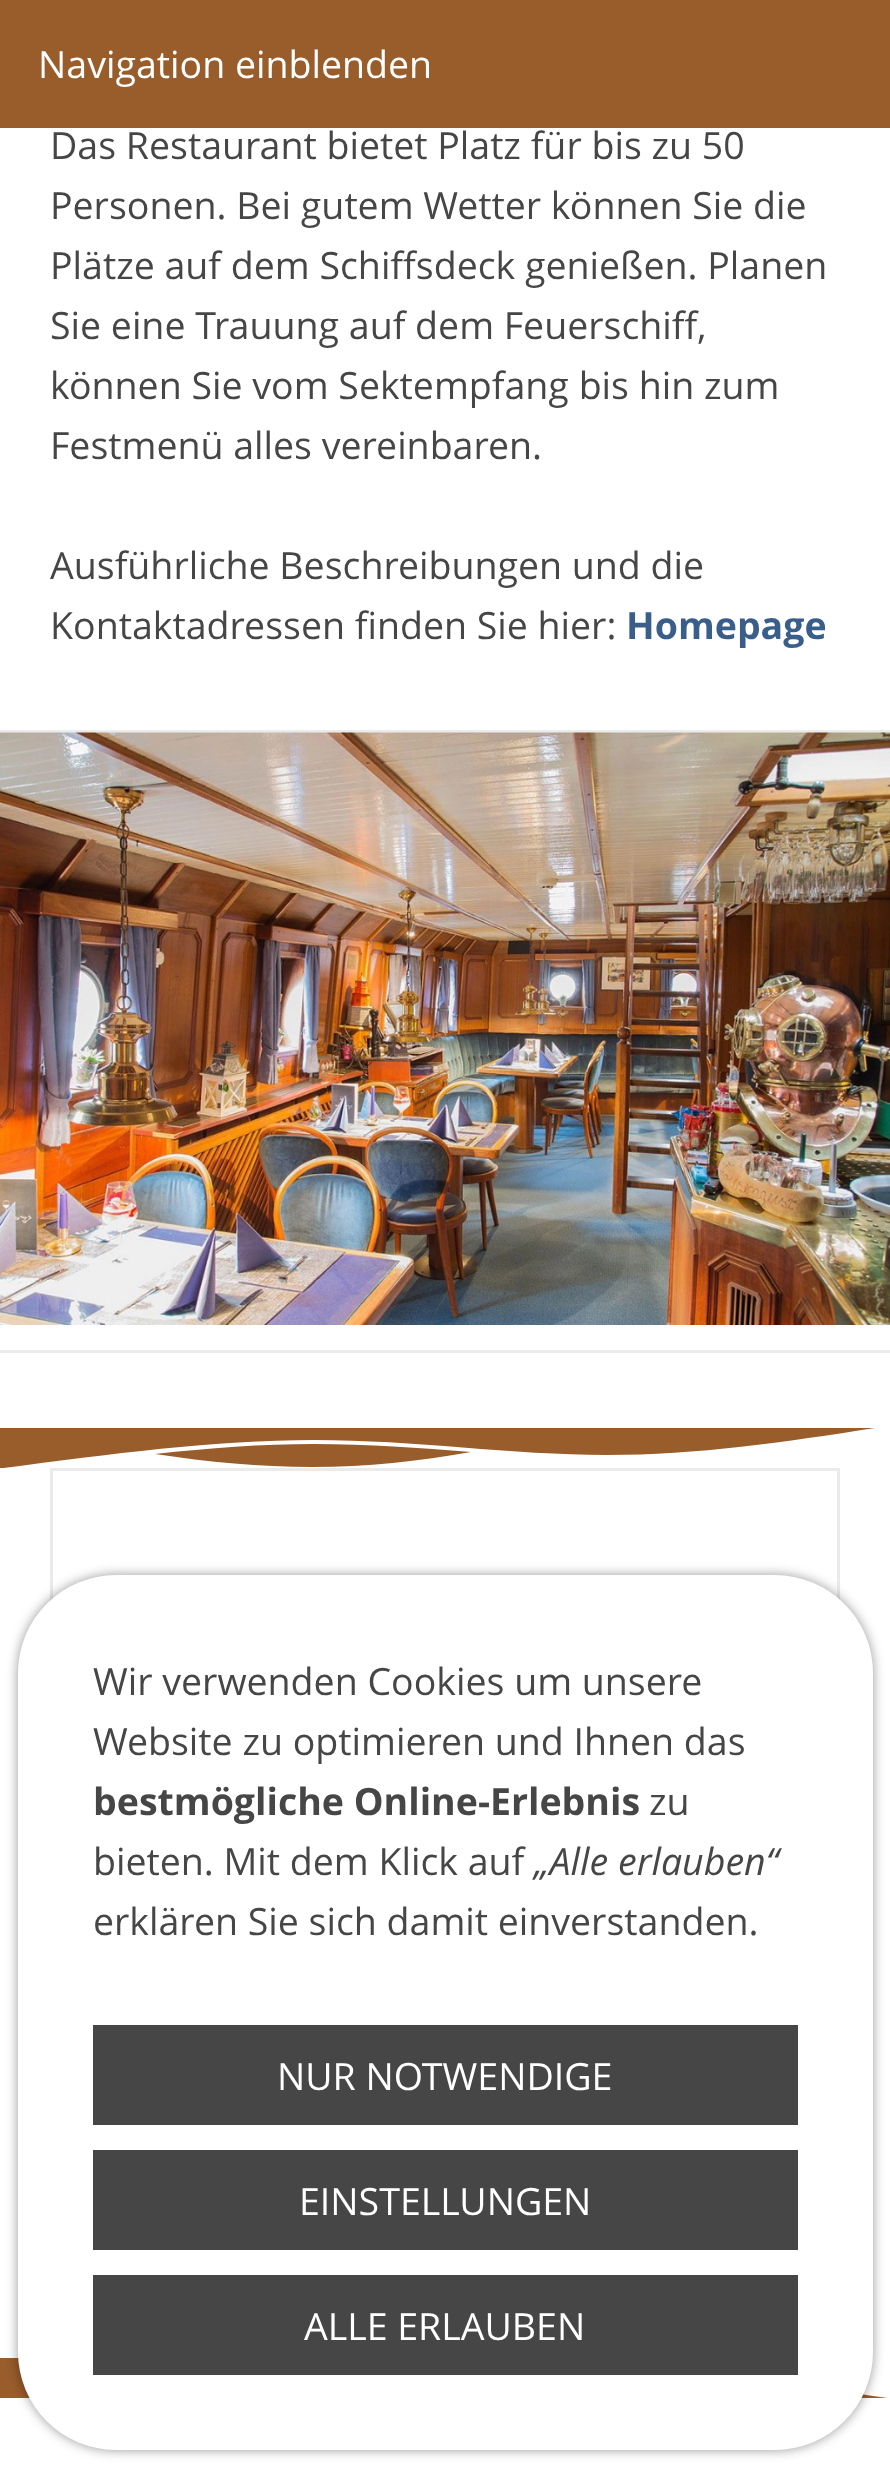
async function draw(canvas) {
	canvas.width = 890;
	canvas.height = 2467;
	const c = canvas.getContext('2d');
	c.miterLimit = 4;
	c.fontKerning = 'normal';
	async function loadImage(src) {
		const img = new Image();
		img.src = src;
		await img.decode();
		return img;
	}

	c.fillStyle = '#fff';
	c.fillRect(0, 0, 890, 2467);
	c.fillStyle = '#995c2b';
	c.fillRect(0, 0, 890, 128);
	c.font = '37.5px Open Sans';
	c.fillStyle = '#fff';
	c.fillText('Navigation einblenden', 38, 78);
	c.fillStyle = '#464646';
	for (const [text, x, y] of [
		['Das Restaurant bietet Platz für bis zu 50', 50, 159],
		['Personen. Bei gutem Wetter können Sie die', 50, 219],
		['Plätze auf dem Schiffsdeck genießen. Planen', 50, 279],
		['Sie eine Trauung auf dem Feuerschiff,', 50, 339],
		['können Sie vom Sektempfang bis hin zum', 50, 399],
		['Festmenü alles vereinbaren.', 50, 459],
		['Ausführliche Beschreibungen und die', 50, 579],
		['Kontaktadressen finden Sie hier:', 50, 639],
	]) {
		c.fillText(text, x, y);
	}
	c.font = 'bold 37.5px Open Sans';
	c.fillStyle = '#395e8a';
	c.fillText('Homepage', 626, 639);
	c.fillStyle = '#ebebeb';
	c.fillRect(0, 730, 890, 3);
	c.fillRect(0, 1350, 890, 3);
	c.drawImage(await loadImage('img1.png'), 0, 732, 890, 593);
	c.save();
	c.beginPath();
	c.rect(0, 1428, 890, 40);
	c.clip();
	c.fillStyle = '#995c2b';
	c.beginPath();
	c.moveTo(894, 1425);
	c.lineTo(-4, 1425);
	c.lineTo(-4, 1469);
	c.bezierCurveTo(104, 1455, 212, 1440, 314, 1440);
	c.bezierCurveTo(416, 1440, 511, 1455, 607, 1455);
	c.bezierCurveTo(703, 1455, 799, 1440, 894, 1425);
	c.closePath();
	c.moveTo(312, 1467);
	c.bezierCurveTo(367, 1467, 419, 1461, 471, 1452);
	c.bezierCurveTo(420, 1448, 368, 1444, 314, 1444);
	c.bezierCurveTo(262, 1444, 209, 1448, 155, 1454);
	c.bezierCurveTo(208, 1462, 261, 1467, 312, 1467);
	c.closePath();
	c.fill();
	c.restore();
	c.strokeStyle = '#ebebeb';
	c.lineWidth = 3;
	c.strokeRect(51.5, 1469.5, 787, 417);
	c.save();
	c.beginPath();
	c.rect(0, 2358, 890, 40);
	c.clip();
	c.fillStyle = '#995c2b';
	c.beginPath();
	c.moveTo(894, 2399);
	c.lineTo(-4, 2399);
	c.lineTo(-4, 2355);
	c.bezierCurveTo(104, 2370, 212, 2385, 314, 2385);
	c.bezierCurveTo(416, 2385, 511, 2370, 607, 2370);
	c.bezierCurveTo(703, 2370, 799, 2385, 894, 2399);
	c.closePath();
	c.moveTo(312, 2357);
	c.bezierCurveTo(367, 2357, 419, 2363, 471, 2372);
	c.bezierCurveTo(420, 2376, 368, 2380, 314, 2380);
	c.bezierCurveTo(262, 2380, 209, 2376, 155, 2371);
	c.bezierCurveTo(208, 2363, 261, 2357, 312, 2357);
	c.closePath();
	c.fill();
	c.restore();
	c.fillStyle = '#00000066';
	c.filter = 'blur(6px)';
	c.beginPath();
	c.roundRect(18, 1575, 855, 875, 98);
	c.fill();
	c.filter = 'none';
	c.fillStyle = '#fff';
	c.beginPath();
	c.roundRect(18, 1575, 855, 875, 98);
	c.fill();
	c.font = '37.5px Open Sans';
	c.fillStyle = '#464646';
	c.fillText('Wir verwenden Cookies um unsere', 93, 1695);
	c.fillText('Website zu optimieren und Ihnen das', 93, 1755);
	c.font = 'bold 37.5px Open Sans';
	c.fillText('bestmögliche Online-Erlebnis', 93, 1815);
	c.font = '37.5px Open Sans';
	c.fillText('zu', 649, 1815);
	c.fillText('bieten. Mit dem Klick auf', 93, 1875);
	c.font = 'italic 37.5px Open Sans';
	c.fillText('„Alle erlauben“', 534, 1875);
	c.font = '37.5px Open Sans';
	c.fillText('erklären Sie sich damit einverstanden.', 93, 1935);
	c.fillRect(93, 2025, 705, 100);
	c.fillStyle = '#fff';
	c.fillText('NUR NOTWENDIGE', 277, 2090);
	c.fillStyle = '#464646';
	c.fillRect(93, 2150, 705, 100);
	c.fillStyle = '#fff';
	c.fillText('EINSTELLUNGEN', 299, 2215);
	c.fillStyle = '#464646';
	c.fillRect(93, 2275, 705, 100);
	c.fillStyle = '#fff';
	c.fillText('ALLE ERLAUBEN', 304, 2340);
}

draw(document.querySelector('canvas'));
